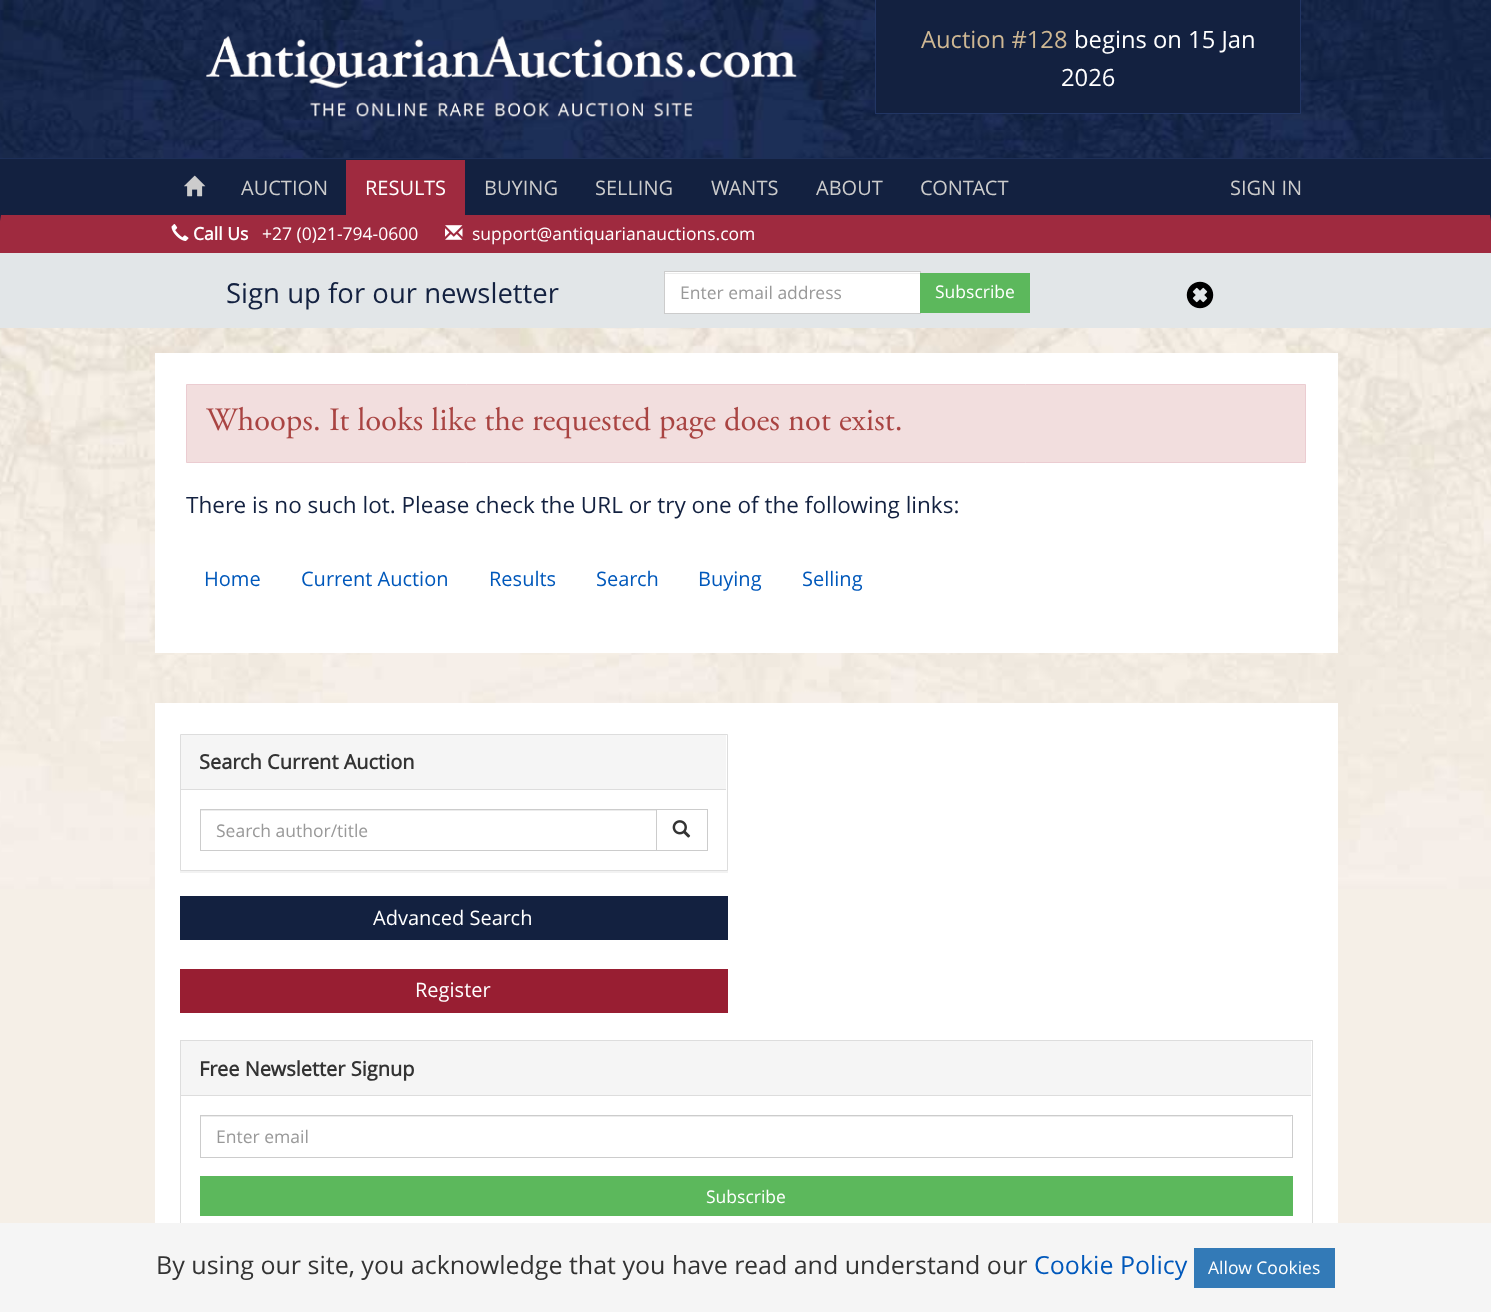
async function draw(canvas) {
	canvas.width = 1491;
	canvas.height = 1312;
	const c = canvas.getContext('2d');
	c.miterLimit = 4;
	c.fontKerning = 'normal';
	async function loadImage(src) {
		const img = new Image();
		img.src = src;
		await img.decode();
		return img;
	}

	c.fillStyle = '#f5efe7';
	c.fillRect(0, 0, 1491, 1312);
	c.drawImage(await loadImage('img1.png'), 0, 328, 1491, 561);
	c.drawImage(await loadImage('img2.png'), 0, 0, 1491, 158);
	c.fillStyle = '#1d2f58';
	c.fillRect(0, 158, 1491, 1);
	c.drawImage(await loadImage('img3.png'), 206, 36, 591, 81);
	for (const [x, y, w, h, color] of [
		[876, 0, 424, 113, '#132140'],
		[1300, 0, 1, 114, '#223664'],
		[875, 113, 426, 1, '#223664'],
		[875, 0, 1, 114, '#223664'],
	]) {
		c.fillStyle = color;
		c.fillRect(x, y, w, h);
	}
	c.font = '23.75px Open Sans';
	c.fillStyle = '#ceb793';
	c.fillText('Auction #128', 921, 48);
	c.fillStyle = '#fff';
	c.fillText('begins on 15 Jan', 1074, 48);
	c.fillText('2026', 1061, 86);
	c.fillStyle = '#132140';
	c.fillRect(0, 159, 1491, 62);
	c.fillStyle = '#9f2a3f';
	c.beginPath();
	c.moveTo(1491, 221);
	c.lineTo(0, 221);
	c.lineTo(1, 215);
	c.lineTo(1490, 215);
	c.closePath();
	c.fill();
	c.drawImage(await loadImage('img4.png'), 184, 175, 22, 22);
	c.font = '20px Open Sans';
	c.fillStyle = '#ccc';
	c.fillText('AUCTION', 241, 195);
	c.fillStyle = '#9f2a3f';
	c.fillRect(346, 160, 119, 55);
	c.fillStyle = '#fff';
	c.fillText('RESULTS', 365, 195);
	c.fillStyle = '#ccc';
	for (const [text, x, y] of [
		['BUYING', 484, 195],
		['SELLING', 595, 195],
		['WANTS', 711, 195],
		['ABOUT', 816, 195],
		['CONTACT', 920, 195],
		['SIGN IN', 1230, 195],
	]) {
		c.fillText(text, x, y);
	}
	c.fillStyle = '#9f2a3f';
	c.fillRect(0, 221, 1491, 32);
	c.drawImage(await loadImage('img5.png'), 171, 224, 18, 17);
	c.font = 'bold 17.5px Open Sans';
	c.fillStyle = '#fff';
	c.fillText('Call Us', 193, 240);
	c.font = '17.5px Open Sans';
	c.fillText('+27 (0)21-794-0600', 262, 240);
	c.drawImage(await loadImage('img6.png'), 445, 225, 18, 15);
	c.fillText('support@antiquarianauctions.com', 472, 240);
	c.fillStyle = '#e2e6e8';
	c.fillRect(0, 253, 1491, 75);
	c.font = '27.5px Open Sans';
	c.fillStyle = '#132140';
	c.fillText('Sign up for our newsletter', 226, 303);
	c.fillStyle = '#fff';
	c.fillRect(665, 272, 255, 41);
	c.fillStyle = '#ececec';
	c.fillRect(665, 273, 255, 1);
	c.strokeStyle = '#ccc';
	c.strokeRect(664.5, 271.5, 256, 42);
	c.font = '17.5px Open Sans';
	c.fillStyle = '#999';
	c.fillText('Enter email address', 680, 299);
	c.fillStyle = '#5cb85c';
	c.fillRect(920, 273, 110, 40);
	c.fillStyle = '#fff';
	c.fillText('Subscribe', 935, 298);
	c.drawImage(await loadImage('img7.png'), 1186, 281, 28, 28);
	c.fillRect(155, 353, 1183, 300);
	c.fillStyle = '#f2dede';
	c.beginPath();
	c.rect(186.5, 384.5, 1119, 78);
	c.fill();
	c.strokeStyle = '#ebccd1';
	c.stroke();
	c.drawImage(await loadImage('img8.png'), 206, 406, 695, 33);
	c.font = '22.5px Open Sans';
	c.fillStyle = '#132140';
	c.fillText('There is no such lot. Please check the URL or try one of the following links:', 186, 513);
	c.font = '20px Open Sans';
	c.fillStyle = '#0058bb';
	for (const [text, x, y] of [
		['Home', 204, 586],
		['Current Auction', 301, 586],
		['Results', 489, 586],
		['Search', 596, 586],
		['Buying', 698, 586],
		['Selling', 802, 586],
	]) {
		c.fillText(text, x, y);
	}
	c.fillStyle = '#fff';
	c.fillRect(155, 703, 1183, 520);
	c.fillStyle = '#0000000d';
	c.filter = 'blur(0.5px)';
	c.beginPath();
	c.rect(180, 735, 548, 138);
	c.fill();
	c.filter = 'none';
	c.fillStyle = '#fff';
	c.beginPath();
	c.rect(180.5, 734.5, 547, 136);
	c.fill();
	c.strokeStyle = '#ddd';
	c.stroke();
	c.fillStyle = '#f5f5f5';
	c.fillRect(181, 735, 545, 54);
	c.fillStyle = '#ddd';
	c.fillRect(181, 789, 545, 1);
	c.font = 'bold 20px Open Sans';
	c.fillStyle = '#333';
	c.fillText('Search Current Auction', 199, 769);
	c.fillStyle = '#ececec';
	c.fillRect(201, 810, 455, 1);
	c.strokeStyle = '#ccc';
	c.strokeRect(200.5, 809.5, 457, 41);
	c.font = '17.5px Open Sans';
	c.fillStyle = '#999';
	c.fillText('Search author/title', 216, 837);
	c.fillStyle = '#fff';
	c.fillRect(657, 810, 1, 40);
	c.strokeRect(656.5, 809.5, 51, 41);
	c.drawImage(await loadImage('img9.png'), 672, 820, 19, 18);
	c.fillStyle = '#132140';
	c.fillRect(180, 896, 548, 44);
	c.font = '20px Open Sans';
	c.fillStyle = '#fff';
	c.fillText('Advanced Search', 373, 925);
	c.fillStyle = '#981e32';
	c.fillRect(180, 969, 548, 44);
	c.fillStyle = '#fff';
	c.fillText('Register', 415, 997);
	c.strokeStyle = '#ddd';
	c.strokeRect(180.5, 1040.5, 1132, 195);
	c.fillStyle = '#f5f5f5';
	c.fillRect(181, 1041, 1130, 54);
	c.fillStyle = '#ddd';
	c.fillRect(181, 1095, 1130, 1);
	c.font = 'bold 20px Open Sans';
	c.fillStyle = '#333';
	c.fillText('Free Newsletter Signup', 199, 1076);
	c.fillStyle = '#ececec';
	c.fillRect(201, 1116, 1090, 1);
	c.strokeStyle = '#ccc';
	c.strokeRect(200.5, 1115.5, 1092, 42);
	c.font = '17.5px Open Sans';
	c.fillStyle = '#999';
	c.fillText('Enter email', 216, 1143);
	c.fillStyle = '#5cb85c';
	c.fillRect(200, 1176, 1093, 40);
	c.fillStyle = '#fff';
	c.fillText('Subscribe', 706, 1203);
	c.fillStyle = '#f5f5f5';
	c.fillRect(0, 1223, 1491, 89);
	c.font = '25px Open Sans';
	c.fillStyle = '#333';
	c.fillText('By using our site, you acknowledge that you have read and understand our', 156, 1274);
	c.fillStyle = '#0058bb';
	c.fillText('Cookie Policy', 1034, 1274);
	c.fillStyle = '#337ab7';
	c.fillRect(1194, 1248, 141, 40);
	c.font = '17.5px Open Sans';
	c.fillStyle = '#fff';
	c.fillText('Allow Cookies', 1208, 1274);
}

draw(document.querySelector('canvas'));
